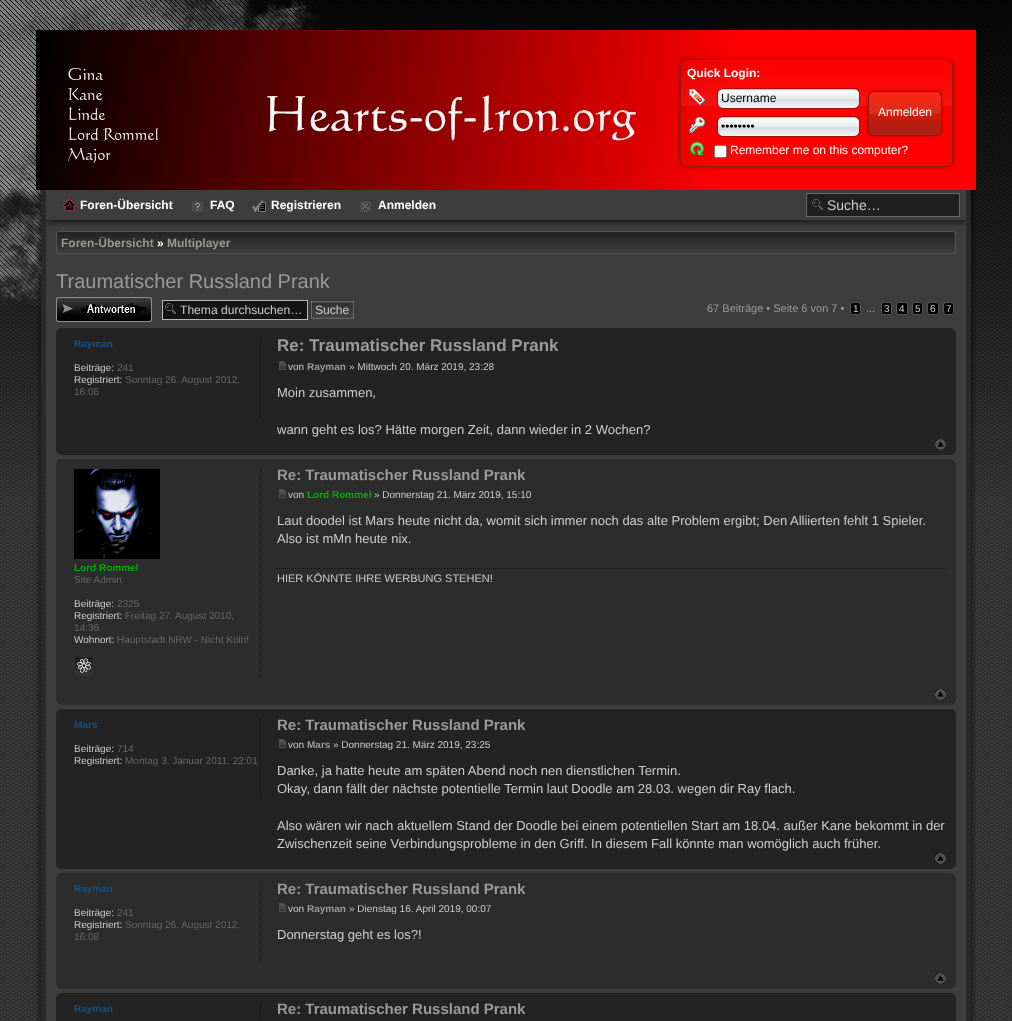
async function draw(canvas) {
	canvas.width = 1012;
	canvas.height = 1021;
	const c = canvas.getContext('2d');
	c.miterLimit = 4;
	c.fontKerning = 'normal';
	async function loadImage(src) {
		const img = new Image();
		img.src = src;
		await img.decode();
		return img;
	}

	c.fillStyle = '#fff';
	c.fillRect(0, 0, 1012, 1021);
	c.drawImage(await loadImage('img1.png'), 0, 500, 1012, 521);
	c.drawImage(await loadImage('img2.png'), 0, 0, 1012, 500);
	c.drawImage(await loadImage('img3.png'), 0, 0, 322, 314);
	c.drawImage(await loadImage('img4.png'), 36, 30, 940, 160);
	c.drawImage(await loadImage('img5.png'), 677, 56, 279, 114);
	c.font = 'bold 12px Liberation Sans';
	c.fillText('Quick Login:', 687, 77);
	c.drawImage(await loadImage('img6.png'), 689, 89, 16, 16);
	c.drawImage(await loadImage('img7.png'), 717, 88, 143, 21);
	c.font = '12px Liberation Sans';
	c.fillStyle = '#000';
	c.fillText('Username', 721, 102);
	c.drawImage(await loadImage('img8.png'), 865, 88, 80, 49);
	c.fillStyle = '#fff';
	c.fillText('Anmelden', 878, 116);
	c.drawImage(await loadImage('img9.png'), 689, 117, 16, 16);
	c.drawImage(await loadImage('img10.png'), 717, 116, 143, 21);
	c.fillStyle = '#000';
	c.fillText('••••••••', 721, 130);
	c.drawImage(await loadImage('img11.png'), 690, 142, 14, 14);
	c.fillStyle = '#fff';
	c.beginPath();
	c.roundRect(714.5, 145.5, 12, 12, 1.5);
	c.fill();
	c.strokeStyle = '#767676';
	c.stroke();
	c.fillText('Remember me on this computer?', 730, 154);
	c.drawImage(await loadImage('img12.png'), 36, 190, 940, 831);
	c.drawImage(await loadImage('img13.png'), 46, 220, 920, 6);
	c.drawImage(await loadImage('img14.png'), 63, 199, 13, 12);
	c.font = 'bold 12px Liberation Sans';
	c.fillText('Foren-Übersicht', 80, 209);
	c.drawImage(await loadImage('img15.png'), 192, 201, 11, 11);
	c.fillText('FAQ', 210, 209);
	c.drawImage(await loadImage('img16.png'), 252, 200, 14, 13);
	c.fillText('Registrieren', 271, 209);
	c.drawImage(await loadImage('img17.png'), 360, 201, 11, 11);
	c.fillText('Anmelden', 378, 209);
	c.fillStyle = '#1f1f1f';
	c.fillRect(807, 194, 152, 22);
	c.drawImage(await loadImage('img18.png'), 812, 199, 11, 11);
	c.strokeStyle = '#686868';
	c.strokeRect(806.5, 193.5, 153, 23);
	c.font = '14px Liberation Sans';
	c.fillStyle = '#ccc';
	c.fillText('Suche…', 827, 210);
	c.drawImage(await loadImage('img19.png'), 56, 231, 900, 23);
	c.font = 'bold 12px Liberation Sans';
	c.fillStyle = '#9a9a8a';
	c.fillText('Foren-Übersicht', 61, 247);
	c.fillStyle = '#fff';
	c.fillText('»', 157, 247);
	c.fillStyle = '#9a9a8a';
	c.fillText('Multiplayer', 167, 247);
	c.font = '20px Liberation Sans';
	c.fillStyle = '#9a9a9a';
	c.fillText('Traumatischer Russland Prank', 56, 288);
	c.drawImage(await loadImage('img20.png'), 56, 297, 96, 25);
	c.fillStyle = '#141414';
	c.fillRect(163, 301, 144, 18);
	c.drawImage(await loadImage('img21.png'), 165, 303, 11, 11);
	c.strokeStyle = '#b4bac0';
	c.strokeRect(162.5, 300.5, 145, 19);
	c.font = '12.1px Liberation Sans';
	c.fillStyle = '#ccc';
	c.fillText('Thema durchsuchen…', 180, 314);
	c.drawImage(await loadImage('img22.png'), 312, 302, 41, 16);
	c.strokeStyle = '#666';
	c.strokeRect(311.5, 301.5, 42, 17);
	c.fillText('Suche', 315, 314);
	c.font = '11px Liberation Sans';
	c.fillStyle = '#9a9a9a';
	c.fillText('67 Beiträge • Seite 6 von 7 •', 707, 312);
	c.fillStyle = '#000';
	c.beginPath();
	c.roundRect(850.5, 302.5, 10, 12, 2.5);
	c.fill();
	c.strokeStyle = '#545454';
	c.stroke();
	c.font = '10px Liberation Sans';
	c.fillStyle = '#ccc';
	c.fillText('1', 853, 312);
	c.font = '11px Liberation Sans';
	c.fillStyle = '#9a9a9a';
	c.fillText('...', 866, 312);
	c.fillStyle = '#000';
	c.beginPath();
	c.roundRect(881.5, 302.5, 10, 12, 2.5);
	c.fill();
	c.stroke();
	c.font = '10px Liberation Sans';
	c.fillStyle = '#ccc';
	c.fillText('3', 884, 312);
	c.fillStyle = '#000';
	c.beginPath();
	c.roundRect(896.5, 302.5, 11, 12, 2.5);
	c.fill();
	c.stroke();
	c.fillStyle = '#ccc';
	c.fillText('4', 899, 312);
	c.fillStyle = '#000';
	c.beginPath();
	c.roundRect(912.5, 302.5, 10, 12, 2.5);
	c.fill();
	c.stroke();
	c.fillStyle = '#ccc';
	c.fillText('5', 915, 312);
	c.fillStyle = '#000';
	c.beginPath();
	c.roundRect(927.5, 302.5, 11, 12, 2.5);
	c.fill();
	c.stroke();
	c.fillStyle = '#ccc';
	c.fillText('6', 930, 312);
	c.fillStyle = '#000';
	c.beginPath();
	c.roundRect(943.5, 302.5, 10, 12, 2.5);
	c.fill();
	c.stroke();
	c.fillStyle = '#ccc';
	c.fillText('7', 946, 312);
	c.fillStyle = '#232323';
	c.fillRect(56, 328, 900, 127);
	c.drawImage(await loadImage('img23.png'), 56, 328, 5, 5);
	c.drawImage(await loadImage('img24.png'), 951, 328, 5, 5);
	c.beginPath();
	c.moveTo(260.5, 338);
	c.lineTo(260.5, 418);
	c.strokeStyle = '#121212';
	c.setLineDash([1, 1]);
	c.stroke();
	c.font = 'bold 10px Liberation Sans';
	c.fillStyle = '#105289';
	c.fillText('Rayman', 74, 347);
	c.font = '10px Liberation Sans';
	c.fillStyle = '#ccc';
	c.fillText('Beiträge:', 74, 371);
	c.fillStyle = '#666';
	c.fillText('241', 117, 371);
	c.fillStyle = '#ccc';
	c.fillText('Registriert:', 74, 383);
	c.fillStyle = '#666';
	c.fillText('Sonntag 26. August 2012,', 125, 383);
	c.fillText('16:08', 74, 395);
	c.font = 'bold 17px Liberation Sans';
	c.fillStyle = '#9a9a9a';
	c.fillText('Re: Traumatischer Russland Prank', 277, 351);
	c.drawImage(await loadImage('img25.png'), 279, 361, 7, 9);
	c.font = '10px Liberation Sans';
	c.fillStyle = '#ccc';
	c.fillText('von', 288, 370);
	c.font = 'bold 10px Liberation Sans';
	c.fillStyle = '#9a9a9a';
	c.fillText('Rayman', 307, 370);
	c.font = '10px Liberation Sans';
	c.fillStyle = '#ccc';
	c.fillText('» Mittwoch 20. März 2019, 23:28', 349, 370);
	c.font = '13px Liberation Sans';
	c.fillText('Moin zusammen,', 277, 397);
	c.fillText('wann geht es los? Hätte morgen Zeit, dann wieder in 2 Wochen?', 277, 434);
	c.drawImage(await loadImage('img26.png'), 935, 439, 11, 11);
	c.drawImage(await loadImage('img27.png'), 56, 450, 5, 5);
	c.drawImage(await loadImage('img28.png'), 951, 450, 5, 5);
	c.fillStyle = '#2c2c2c';
	c.fillRect(56, 459, 900, 246);
	c.drawImage(await loadImage('img29.png'), 56, 459, 5, 4);
	c.drawImage(await loadImage('img30.png'), 951, 459, 5, 4);
	c.font = 'bold 15px Liberation Sans';
	c.fillStyle = '#9a9a9a';
	c.fillText('Re: Traumatischer Russland Prank', 277, 480);
	c.drawImage(await loadImage('img31.png'), 279, 489, 7, 9);
	c.font = '10px Liberation Sans';
	c.fillStyle = '#ccc';
	c.fillText('von', 288, 498);
	c.font = 'bold 10px Liberation Sans';
	c.fillStyle = '#0a0';
	c.fillText('Lord Rommel', 307, 498);
	c.font = '10px Liberation Sans';
	c.fillStyle = '#ccc';
	c.fillText('» Donnerstag 21. März 2019, 15:10', 374, 498);
	c.font = '13px Liberation Sans';
	c.fillText('Laut doodel ist Mars heute nicht da, womit sich immer noch das alte Problem ergibt; Den Alliierten fehlt 1 Spieler.', 277, 525);
	c.fillText('Also ist mMn heute nix.', 277, 543);
	c.beginPath();
	c.moveTo(277, 568.5);
	c.lineTo(946, 568.5);
	c.stroke();
	c.font = '11px Liberation Sans';
	c.fillText('HIER KÖNNTE IHRE WERBUNG STEHEN!', 277, 582);
	c.beginPath();
	c.moveTo(260.5, 469);
	c.lineTo(260.5, 679);
	c.stroke();
	c.drawImage(await loadImage('img32.png'), 74, 469, 86, 90);
	c.font = 'bold 10px Liberation Sans';
	c.fillStyle = '#0a0';
	c.fillText('Lord Rommel', 74, 571);
	c.font = '10px Liberation Sans';
	c.fillStyle = '#666';
	c.fillText('Site Admin', 74, 583);
	c.fillStyle = '#ccc';
	c.fillText('Beiträge:', 74, 607);
	c.fillStyle = '#666';
	c.fillText('2325', 117, 607);
	c.fillStyle = '#ccc';
	c.fillText('Registriert:', 74, 619);
	c.fillStyle = '#666';
	c.fillText('Freitag 27. August 2010,', 125, 619);
	c.fillText('14:36', 74, 631);
	c.fillStyle = '#ccc';
	c.fillText('Wohnort:', 74, 643);
	c.fillStyle = '#666';
	c.fillText('Hauptstadt NRW - Nicht Köln!', 117, 643);
	c.drawImage(await loadImage('img33.png'), 74, 656, 20, 20);
	c.drawImage(await loadImage('img34.png'), 935, 689, 11, 11);
	c.drawImage(await loadImage('img35.png'), 56, 700, 5, 5);
	c.drawImage(await loadImage('img36.png'), 951, 700, 5, 5);
	c.fillStyle = '#232323';
	c.fillRect(56, 709, 900, 160);
	c.drawImage(await loadImage('img23.png'), 56, 709, 5, 5);
	c.drawImage(await loadImage('img24.png'), 951, 709, 5, 5);
	c.beginPath();
	c.moveTo(260.5, 719);
	c.lineTo(260.5, 799);
	c.stroke();
	c.font = 'bold 10px Liberation Sans';
	c.fillStyle = '#105289';
	c.fillText('Mars', 74, 728);
	c.font = '10px Liberation Sans';
	c.fillStyle = '#ccc';
	c.fillText('Beiträge:', 74, 752);
	c.fillStyle = '#666';
	c.fillText('714', 117, 752);
	c.fillStyle = '#ccc';
	c.fillText('Registriert:', 74, 764);
	c.fillStyle = '#666';
	c.fillText('Montag 3. Januar 2011, 22:01', 125, 764);
	c.font = 'bold 15px Liberation Sans';
	c.fillStyle = '#9a9a9a';
	c.fillText('Re: Traumatischer Russland Prank', 277, 730);
	c.drawImage(await loadImage('img25.png'), 279, 739, 7, 9);
	c.font = '10px Liberation Sans';
	c.fillStyle = '#ccc';
	c.fillText('von', 288, 748);
	c.font = 'bold 10px Liberation Sans';
	c.fillStyle = '#9a9a9a';
	c.fillText('Mars', 307, 748);
	c.font = '10px Liberation Sans';
	c.fillStyle = '#ccc';
	c.fillText('» Donnerstag 21. März 2019, 23:25', 333, 748);
	c.font = '13px Liberation Sans';
	for (const [text, x, y] of [
		['Danke, ja hatte heute am späten Abend noch nen dienstlichen Termin.', 277, 775],
		['Okay, dann fällt der nächste potentielle Termin laut Doodle am 28.03. wegen dir Ray flach.', 277, 793],
		['Also wären wir nach aktuellem Stand der Doodle bei einem potentiellen Start am 18.04. außer Kane bekommt in der', 277, 830],
		['Zwischenzeit seine Verbindungsprobleme in den Griff. In diesem Fall könnte man womöglich auch früher.', 277, 848],
	]) {
		c.fillText(text, x, y);
	}
	c.drawImage(await loadImage('img26.png'), 935, 853, 11, 11);
	c.drawImage(await loadImage('img27.png'), 56, 864, 5, 5);
	c.drawImage(await loadImage('img28.png'), 951, 864, 5, 5);
	c.fillStyle = '#2c2c2c';
	c.fillRect(56, 873, 900, 116);
	c.drawImage(await loadImage('img29.png'), 56, 873, 5, 4);
	c.drawImage(await loadImage('img30.png'), 951, 873, 5, 4);
	c.beginPath();
	c.moveTo(260.5, 883);
	c.lineTo(260.5, 963);
	c.stroke();
	c.font = 'bold 10px Liberation Sans';
	c.fillStyle = '#105289';
	c.fillText('Rayman', 74, 892);
	c.font = '10px Liberation Sans';
	c.fillStyle = '#ccc';
	c.fillText('Beiträge:', 74, 916);
	c.fillStyle = '#666';
	c.fillText('241', 117, 916);
	c.fillStyle = '#ccc';
	c.fillText('Registriert:', 74, 928);
	c.fillStyle = '#666';
	c.fillText('Sonntag 26. August 2012,', 125, 928);
	c.fillText('16:08', 74, 940);
	c.font = 'bold 15px Liberation Sans';
	c.fillStyle = '#9a9a9a';
	c.fillText('Re: Traumatischer Russland Prank', 277, 894);
	c.drawImage(await loadImage('img31.png'), 279, 903, 7, 9);
	c.font = '10px Liberation Sans';
	c.fillStyle = '#ccc';
	c.fillText('von', 288, 912);
	c.font = 'bold 10px Liberation Sans';
	c.fillStyle = '#9a9a9a';
	c.fillText('Rayman', 307, 912);
	c.font = '10px Liberation Sans';
	c.fillStyle = '#ccc';
	c.fillText('» Dienstag 16. April 2019, 00:07', 349, 912);
	c.font = '13px Liberation Sans';
	c.fillText('Donnerstag geht es los?!', 277, 939);
	c.drawImage(await loadImage('img34.png'), 935, 973, 11, 11);
	c.drawImage(await loadImage('img35.png'), 56, 984, 5, 5);
	c.drawImage(await loadImage('img36.png'), 951, 984, 5, 5);
	c.fillStyle = '#232323';
	c.fillRect(56, 993, 900, 28);
	c.drawImage(await loadImage('img23.png'), 56, 993, 5, 5);
	c.drawImage(await loadImage('img24.png'), 951, 993, 5, 5);
	c.beginPath();
	c.moveTo(260.5, 1003);
	c.lineTo(260.5, 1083);
	c.stroke();
	c.font = 'bold 10px Liberation Sans';
	c.fillStyle = '#105289';
	c.fillText('Rayman', 74, 1012);
	c.font = 'bold 15px Liberation Sans';
	c.fillStyle = '#9a9a9a';
	c.fillText('Re: Traumatischer Russland Prank', 277, 1014);
}

draw(document.querySelector('canvas'));
